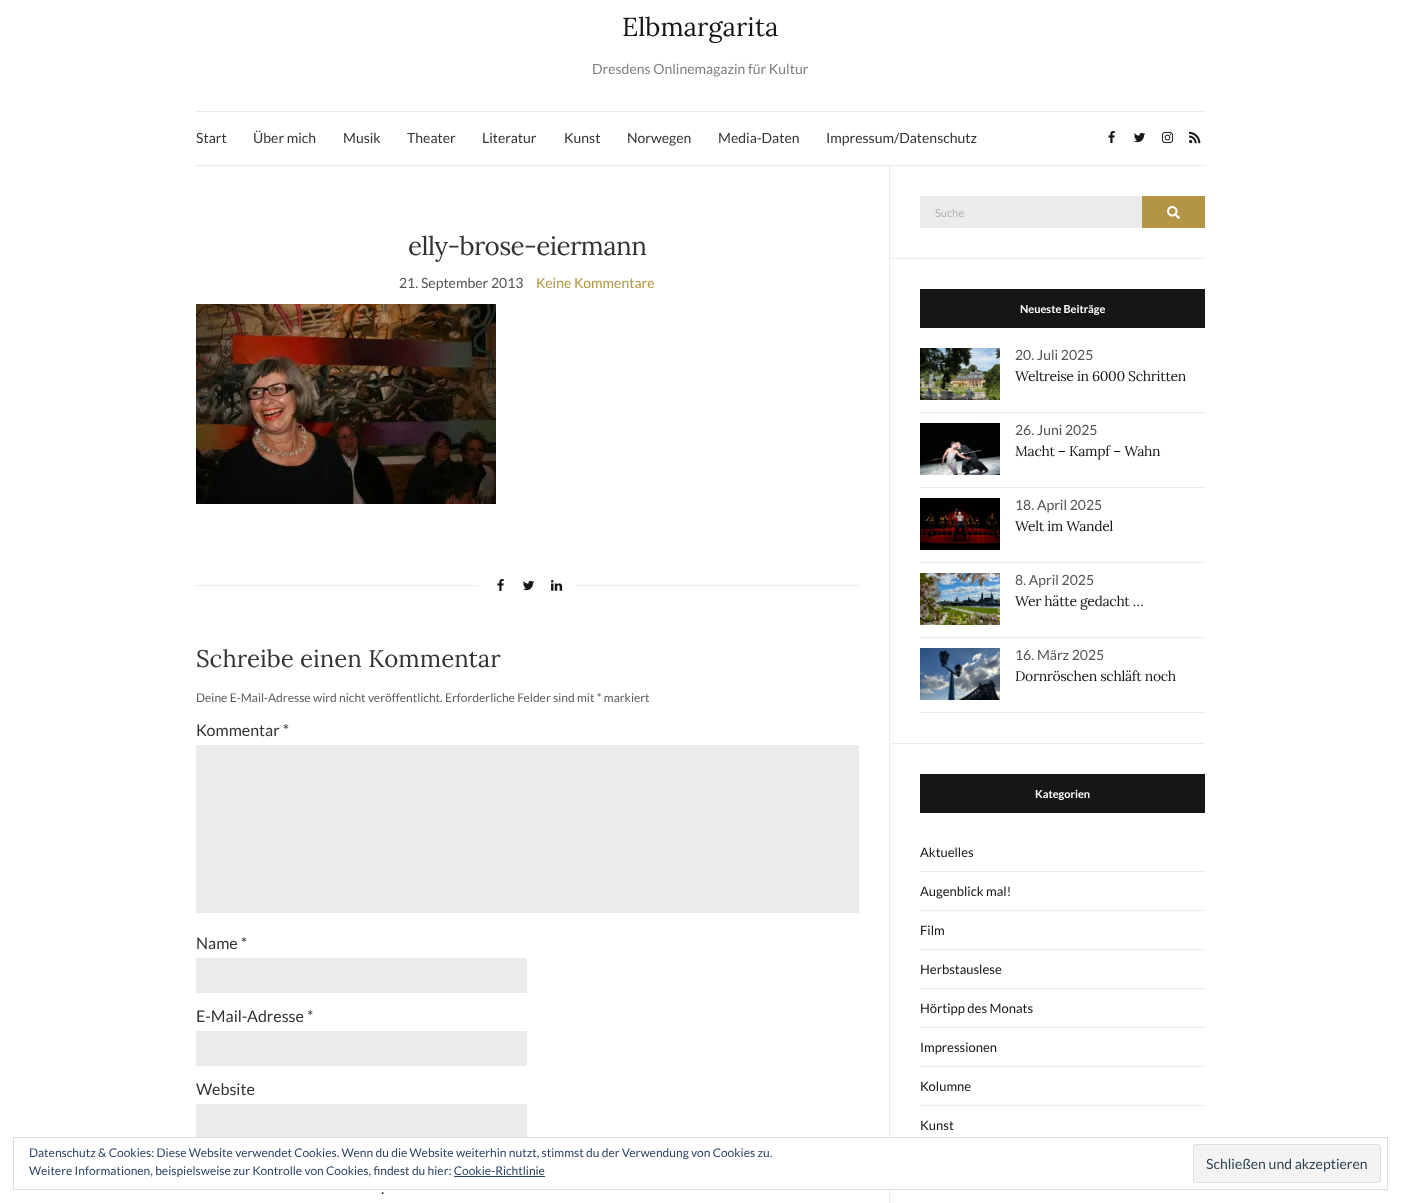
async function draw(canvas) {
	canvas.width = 1401;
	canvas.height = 1203;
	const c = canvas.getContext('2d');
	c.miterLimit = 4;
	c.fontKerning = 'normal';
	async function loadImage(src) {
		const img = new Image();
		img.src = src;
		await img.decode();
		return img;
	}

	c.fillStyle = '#fff';
	c.fillRect(0, 0, 1401, 1203);
	c.font = '26px Lora';
	c.fillStyle = '#161616';
	c.fillText('Elbmargarita', 622, 36);
	c.font = '14px Lato';
	c.fillStyle = '#7e7e7e';
	c.fillText('Dresdens Onlinemagazin für Kultur', 592, 74);
	c.fillStyle = '#ebebeb';
	c.fillRect(196, 111, 1010, 1);
	c.fillRect(196, 165, 1010, 1);
	c.fillStyle = '#333';
	for (const [text, x, y] of [
		['Start', 196, 143],
		['Über mich', 253, 143],
		['Musik', 343, 143],
		['Theater', 407, 143],
		['Literatur', 482, 143],
		['Kunst', 564, 143],
		['Norwegen', 627, 143],
		['Media-Daten', 718, 143],
		['Impressum/Datenschutz', 826, 143],
	]) {
		c.fillText(text, x, y);
	}
	c.drawImage(await loadImage('img1.png'), 1108, 131, 7, 13);
	c.drawImage(await loadImage('img2.png'), 1134, 132, 11, 11);
	c.drawImage(await loadImage('img3.png'), 1161, 131, 13, 13);
	c.drawImage(await loadImage('img4.png'), 1189, 131, 12, 13);
	c.letterSpacing = '-0.6px';
	c.font = '26px Lora';
	c.fillText('elly-brose-eiermann', 408, 255);
	c.letterSpacing = '0px';
	c.font = '14px Lato';
	c.fillStyle = '#545454';
	c.fillText('21. September 2013', 399, 288);
	c.fillStyle = '#b49543';
	c.fillText('Keine Kommentare', 536, 288);
	c.drawImage(await loadImage('img5.png'), 196, 304, 300, 200);
	c.fillStyle = '#ebebeb';
	c.fillRect(196, 585, 663, 1);
	c.fillStyle = '#fff';
	c.fillRect(479, 585, 97, 1);
	c.drawImage(await loadImage('img1.png'), 497, 579, 7, 13);
	c.drawImage(await loadImage('img2.png'), 523, 580, 11, 11);
	c.drawImage(await loadImage('img6.png'), 550, 580, 13, 11);
	c.font = '24px Lora';
	c.fillStyle = '#333';
	c.fillText('Schreibe einen Kommentar', 196, 667);
	c.font = '12px Lato';
	c.fillStyle = '#5c5c5c';
	c.fillText('Deine E-Mail-Adresse wird nicht veröffentlicht. Erforderliche Felder sind mit * markiert', 196, 702);
	c.font = '16px Lato';
	c.fillStyle = '#333';
	c.fillText('Kommentar *', 196, 736);
	c.fillStyle = '#ebebeb';
	c.fillRect(196, 745, 663, 168);
	c.fillStyle = '#333';
	c.fillText('Name *', 196, 949);
	c.fillStyle = '#ebebeb';
	c.fillRect(196, 958, 331, 35);
	c.fillStyle = '#333';
	c.fillText('E-Mail-Adresse *', 196, 1022);
	c.fillStyle = '#ebebeb';
	c.fillRect(196, 1031, 331, 35);
	c.fillStyle = '#333';
	c.fillText('Website', 196, 1095);
	c.fillStyle = '#ebebeb';
	c.fillRect(196, 1104, 331, 33);
	c.fillStyle = '#333';
	c.fillText('.', 381, 1194);
	for (const [x, y, w, h, color] of [
		[889, 166, 1, 1037, '#ebebeb'],
		[890, 258, 315, 1, '#ebebeb'],
		[920, 196, 222, 32, '#ebebeb'],
	]) {
		c.fillStyle = color;
		c.fillRect(x, y, w, h);
	}
	c.font = '11px Lato';
	c.fillStyle = '#b4b4b4';
	c.fillText('Suche', 935, 217);
	c.fillStyle = '#b49543';
	c.fillRect(1142, 196, 63, 32);
	c.drawImage(await loadImage('img7.png'), 1167, 206, 13, 13);
	c.fillStyle = '#ebebeb';
	c.fillRect(890, 743, 315, 1);
	c.fillStyle = '#161616';
	c.fillRect(920, 289, 285, 39);
	c.font = 'bold 11px Lato';
	c.fillStyle = '#fff';
	c.fillText('Neueste Beiträge', 1020, 313);
	c.fillStyle = '#ececec';
	c.fillRect(920, 412, 285, 1);
	c.drawImage(await loadImage('img8.png'), 920, 348, 80, 52);
	c.font = '14px Lato';
	c.fillStyle = '#545454';
	c.fillText('20. Juli 2025', 1015, 360);
	c.letterSpacing = '-0.35px';
	c.font = '14px Lora';
	c.fillStyle = '#161616';
	c.fillText('Weltreise in 6000 Schritten', 1015, 381);
	c.fillStyle = '#ececec';
	c.fillRect(920, 487, 285, 1);
	c.drawImage(await loadImage('img9.png'), 920, 423, 80, 52);
	c.letterSpacing = '0px';
	c.font = '14px Lato';
	c.fillStyle = '#545454';
	c.fillText('26. Juni 2025', 1015, 435);
	c.letterSpacing = '-0.35px';
	c.font = '14px Lora';
	c.fillStyle = '#161616';
	c.fillText('Macht – Kampf – Wahn', 1015, 456);
	c.fillStyle = '#ececec';
	c.fillRect(920, 562, 285, 1);
	c.drawImage(await loadImage('img10.png'), 920, 498, 80, 52);
	c.letterSpacing = '0px';
	c.font = '14px Lato';
	c.fillStyle = '#545454';
	c.fillText('18. April 2025', 1015, 510);
	c.letterSpacing = '-0.35px';
	c.font = '14px Lora';
	c.fillStyle = '#161616';
	c.fillText('Welt im Wandel', 1015, 531);
	c.fillStyle = '#ececec';
	c.fillRect(920, 637, 285, 1);
	c.drawImage(await loadImage('img11.png'), 920, 573, 80, 52);
	c.letterSpacing = '0px';
	c.font = '14px Lato';
	c.fillStyle = '#545454';
	c.fillText('8. April 2025', 1015, 585);
	c.letterSpacing = '-0.35px';
	c.font = '14px Lora';
	c.fillStyle = '#161616';
	c.fillText('Wer hätte gedacht …', 1015, 606);
	c.fillStyle = '#ececec';
	c.fillRect(920, 712, 285, 1);
	c.drawImage(await loadImage('img12.png'), 920, 648, 80, 52);
	c.letterSpacing = '0px';
	c.font = '14px Lato';
	c.fillStyle = '#545454';
	c.fillText('16. März 2025', 1015, 660);
	c.letterSpacing = '-0.35px';
	c.font = '14px Lora';
	c.fillStyle = '#161616';
	c.fillText('Dornröschen schläft noch', 1015, 681);
	c.fillRect(920, 774, 285, 39);
	c.letterSpacing = '0px';
	c.font = 'bold 11px Lato';
	c.fillStyle = '#fff';
	c.fillText('Kategorien', 1035, 798);
	c.fillStyle = '#ececec';
	c.fillRect(920, 871, 285, 1);
	c.font = '13px Lato';
	c.fillStyle = '#161616';
	c.fillText('Aktuelles', 920, 857);
	c.fillStyle = '#ececec';
	c.fillRect(920, 910, 285, 1);
	c.fillStyle = '#161616';
	c.fillText('Augenblick mal!', 920, 896);
	c.fillStyle = '#ececec';
	c.fillRect(920, 949, 285, 1);
	c.fillStyle = '#161616';
	c.fillText('Film', 920, 935);
	c.fillStyle = '#ececec';
	c.fillRect(920, 988, 285, 1);
	c.fillStyle = '#161616';
	c.fillText('Herbstauslese', 920, 974);
	c.fillStyle = '#ececec';
	c.fillRect(920, 1027, 285, 1);
	c.fillStyle = '#161616';
	c.fillText('Hörtipp des Monats', 920, 1013);
	c.fillStyle = '#ececec';
	c.fillRect(920, 1066, 285, 1);
	c.fillStyle = '#161616';
	c.fillText('Impressionen', 920, 1052);
	c.fillStyle = '#ececec';
	c.fillRect(920, 1105, 285, 1);
	c.fillStyle = '#161616';
	c.fillText('Kolumne', 920, 1091);
	c.fillText('Kunst', 920, 1130);
	c.fillStyle = '#fff';
	c.fillRect(889, 1138, 1, 51);
	c.strokeStyle = '#dedede';
	c.strokeRect(13.5, 1137.5, 1374, 52);
	c.font = '12px Lato';
	c.fillStyle = '#2e4467';
	c.fillText('Datenschutz & Cookies: Diese Website verwendet Cookies. Wenn du die Website weiterhin nutzt, stimmst du der Verwendung von Cookies zu.', 29, 1157);
	c.fillText('Weitere Informationen, beispielsweise zur Kontrolle von Cookies, findest du hier: Cookie-Richtlinie', 29, 1175);
	c.fillStyle = '#f3f3f3';
	c.beginPath();
	c.roundRect(1193.5, 1144.5, 187, 38, 2.5);
	c.fill();
	c.stroke();
	c.font = '14px Lato';
	c.fillStyle = '#2e4453';
	c.fillText('Schließen und akzeptieren', 1206, 1169);
	c.fillStyle = '#2e4467';
	c.fillRect(454, 1176, 91, 1);
}

draw(document.querySelector('canvas'));
